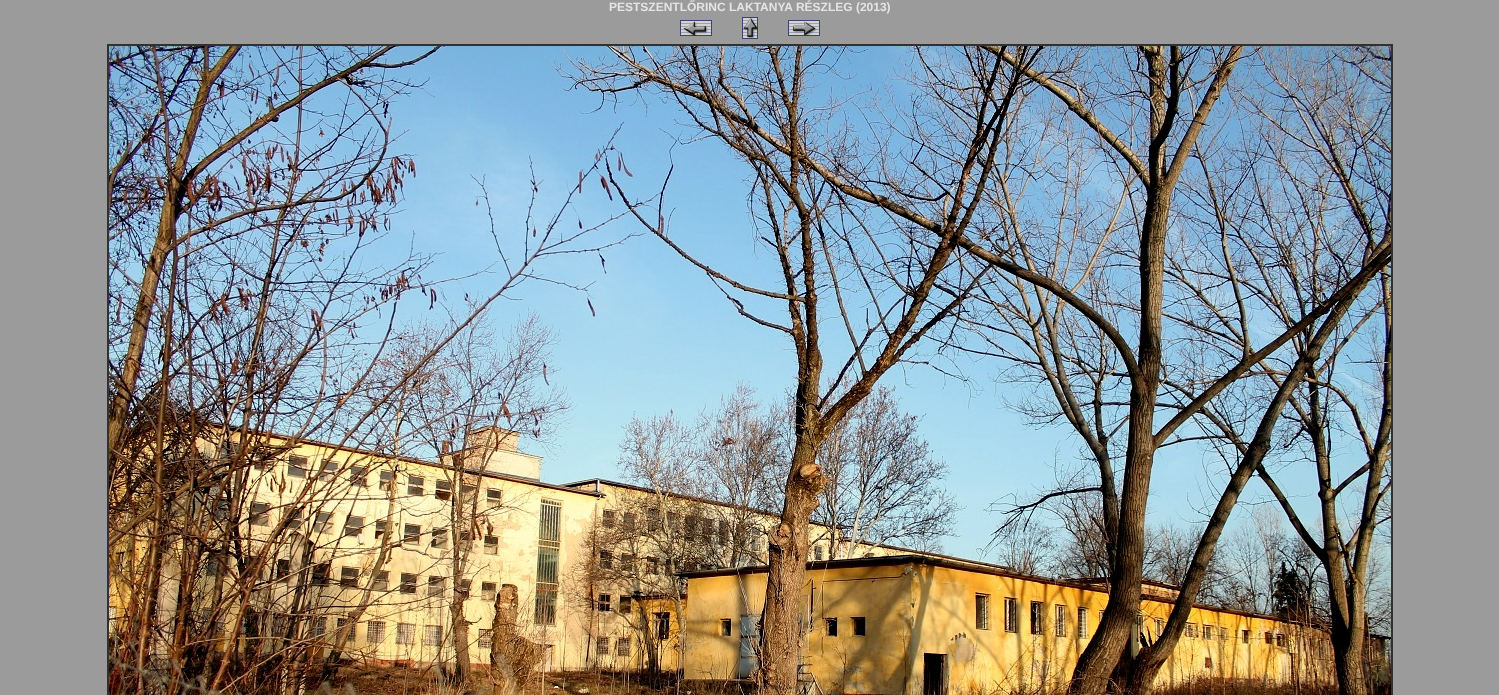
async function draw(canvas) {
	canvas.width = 1499;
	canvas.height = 695;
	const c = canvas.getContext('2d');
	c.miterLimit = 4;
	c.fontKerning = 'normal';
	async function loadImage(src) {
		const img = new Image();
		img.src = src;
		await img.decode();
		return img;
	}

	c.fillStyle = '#9b9b9b';
	c.fillRect(0, 0, 1499, 695);
	c.font = 'bold 12px Liberation Sans';
	c.fillStyle = '#e4e4e4';
	c.fillText('PESTSZENTLŐRINC LAKTANYA RÉSZLEG (2013)', 609, 11);
	c.drawImage(await loadImage('img1.png'), 680, 20, 32, 16);
	c.drawImage(await loadImage('img2.png'), 742, 17, 16, 22);
	c.drawImage(await loadImage('img3.png'), 788, 20, 32, 16);
	c.fillStyle = '#313131';
	c.fillRect(107, 44, 1286, 651);
	c.drawImage(await loadImage('img4.png'), 109, 46, 1282, 649);
}

draw(document.querySelector('canvas'));
